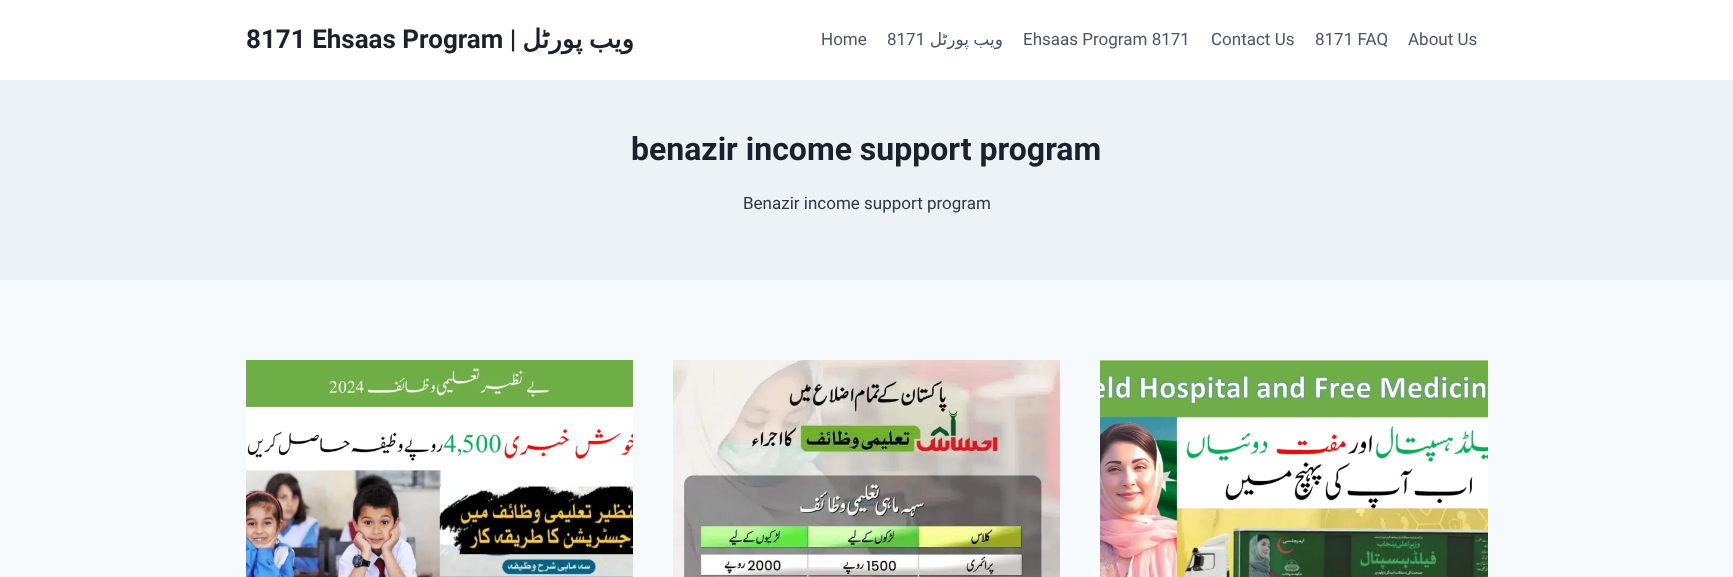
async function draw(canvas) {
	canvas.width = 1733;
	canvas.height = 577;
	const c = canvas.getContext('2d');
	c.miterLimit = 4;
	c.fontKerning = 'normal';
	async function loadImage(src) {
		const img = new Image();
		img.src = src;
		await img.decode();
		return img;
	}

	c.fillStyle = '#f7fafc';
	c.fillRect(0, 0, 1733, 577);
	c.fillStyle = '#fff';
	c.fillRect(0, 0, 1733, 80);
	c.font = 'bold 26px Roboto';
	c.fillStyle = '#1a202c';
	c.fillText('8171 Ehsaas Program |', 246, 48);
	c.wordSpacing = '-2px';
	c.direction = 'rtl';
	c.font = 'bold 26px DejaVu Sans';
	c.fillText('ویب پورٹل', 634, 48);
	c.wordSpacing = '0px';
	c.direction = 'ltr';
	c.font = '17px Roboto';
	c.fillStyle = '#4a5568';
	c.fillText('Home', 821, 45);
	c.fillText('8171', 887, 45);
	c.wordSpacing = '-1px';
	c.direction = 'rtl';
	c.font = '17px DejaVu Sans';
	c.fillText('ویب پورٹل', 1003, 45);
	c.wordSpacing = '0px';
	c.direction = 'ltr';
	c.font = '17px Roboto';
	for (const [text, x, y] of [
		['Ehsaas Program 8171', 1023, 45],
		['Contact Us', 1211, 45],
		['8171 FAQ', 1315, 45],
		['About Us', 1408, 45],
	]) {
		c.fillText(text, x, y);
	}
	c.fillStyle = '#edf2f7';
	c.fillRect(0, 80, 1733, 200);
	c.font = 'bold 32px Roboto';
	c.fillStyle = '#1a202c';
	c.fillText('benazir income support program', 631, 160);
	c.font = '17px Roboto';
	c.fillStyle = '#2d3748';
	c.fillText('Benazir income support program', 743, 209);
	c.drawImage(await loadImage('img1.png'), 246, 360, 387, 217);
	c.drawImage(await loadImage('img2.png'), 673, 360, 387, 217);
	c.drawImage(await loadImage('img3.png'), 1100, 360, 388, 217);
}

draw(document.querySelector('canvas'));
